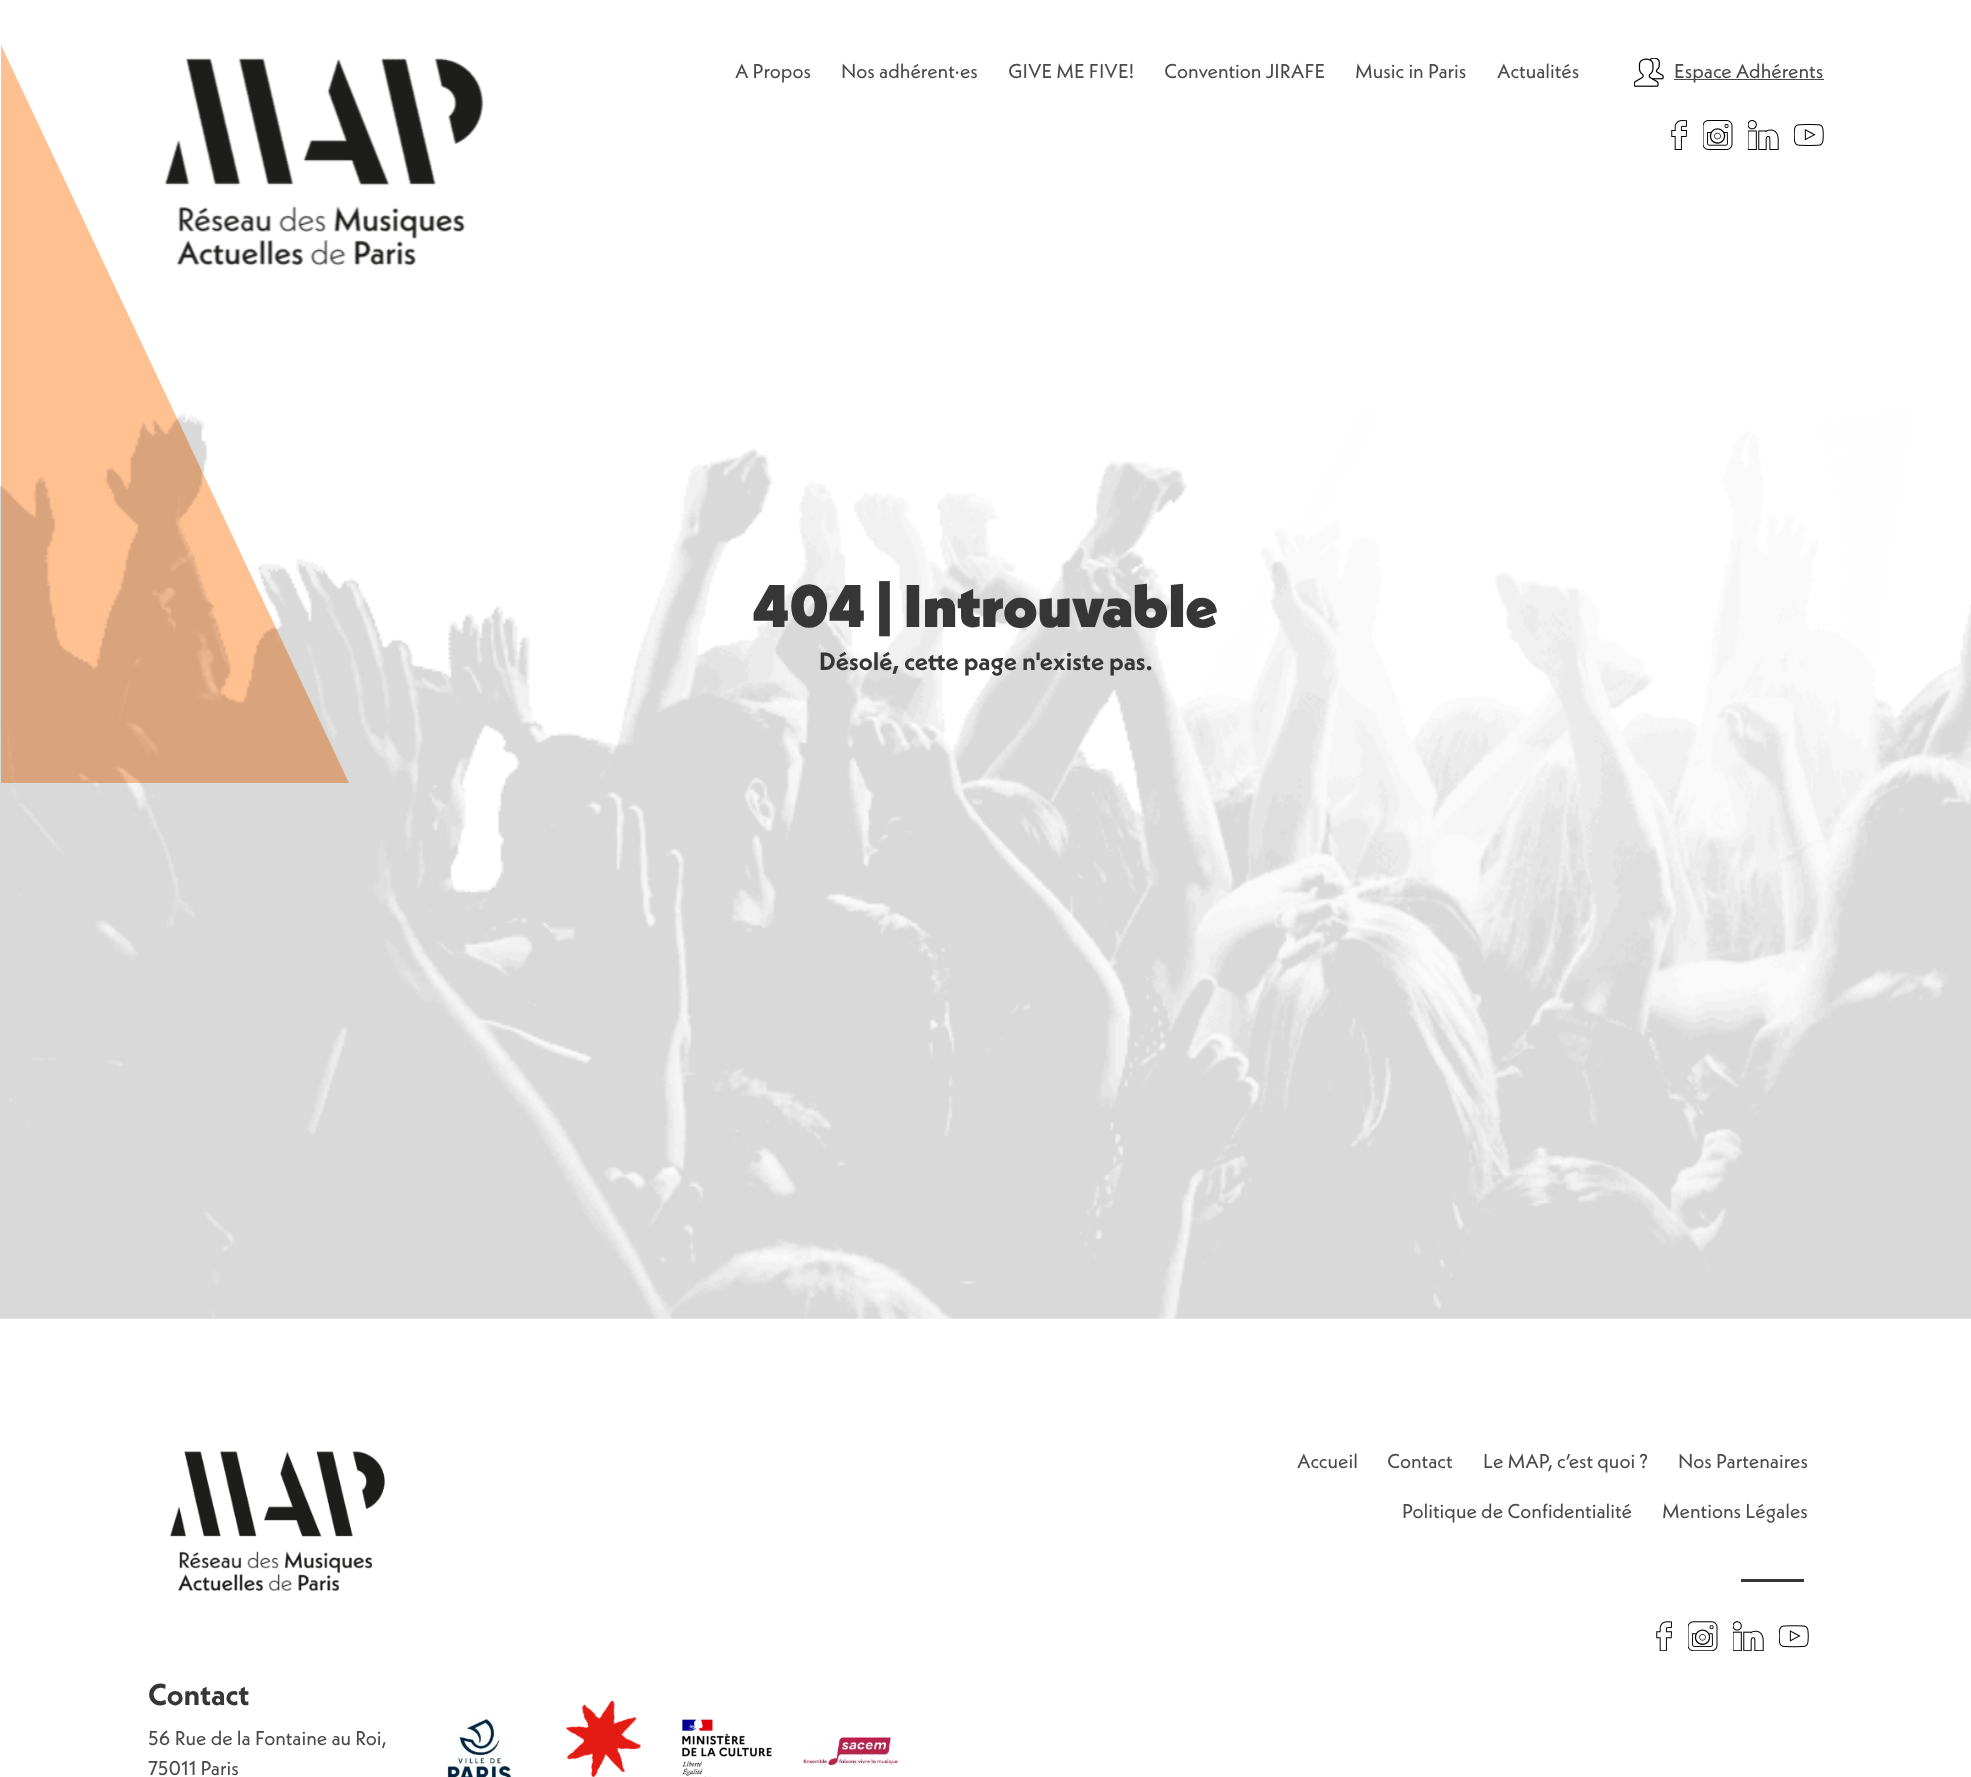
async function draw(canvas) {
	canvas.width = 1971;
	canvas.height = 1777;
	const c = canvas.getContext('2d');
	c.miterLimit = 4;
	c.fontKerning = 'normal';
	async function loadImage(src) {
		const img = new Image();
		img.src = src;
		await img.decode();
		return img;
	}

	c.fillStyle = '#fff';
	c.fillRect(0, 0, 1971, 1777);
	c.fillStyle = '#ffc192';
	c.beginPath();
	c.moveTo(1, 45);
	c.lineTo(1, 783);
	c.lineTo(349, 783);
	c.closePath();
	c.fill();
	c.drawImage(await loadImage('img1.png'), 164, 58, 320, 208);
	c.font = '20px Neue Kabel';
	c.fillStyle = '#4a4a4a';
	for (const [text, x, y] of [
		['A Propos', 735, 78],
		['Nos adhérent·es', 841, 78],
		['GIVE ME FIVE!', 1008, 78],
		['Convention JIRAFE', 1164, 78],
		['Music in Paris', 1355, 78],
		['Actualités', 1497, 78],
	]) {
		c.fillText(text, x, y);
	}
	c.drawImage(await loadImage('img2.png'), 1634, 58, 30, 29);
	c.fillRect(1674, 79, 150, 1);
	c.fillText('Espace Adhérents', 1674, 78);
	c.drawImage(await loadImage('img3.png'), 1671, 120, 16, 30);
	c.drawImage(await loadImage('img4.png'), 1703, 120, 30, 30);
	c.drawImage(await loadImage('img5.png'), 1748, 120, 31, 30);
	c.drawImage(await loadImage('img6.png'), 1794, 124, 30, 22);
	c.drawImage(await loadImage('img7.png'), 0, 412, 1971, 907);
	c.font = '900 60px Neue Kabel';
	c.fillStyle = '#363636';
	c.fillText('404 | Introuvable', 753, 627);
	c.font = 'bold 25px Neue Kabel';
	c.fillText('Désolé, cette page n\'existe pas.', 819, 670);
	c.drawImage(await loadImage('img8.png'), 170, 1451, 216, 140);
	c.font = '20px Neue Kabel';
	c.fillStyle = '#4a4a4a';
	for (const [text, x, y] of [
		['Accueil', 1297, 1468],
		['Contact', 1387, 1468],
		['Le MAP, c’est quoi ?', 1483, 1468],
		['Nos Partenaires', 1678, 1468],
		['Politique de Confidentialité', 1402, 1518],
		['Mentions Légales', 1662, 1518],
	]) {
		c.fillText(text, x, y);
	}
	c.fillStyle = '#363636';
	c.fillRect(1741, 1579, 63, 3);
	c.drawImage(await loadImage('img9.png'), 1656, 1621, 16, 30);
	c.drawImage(await loadImage('img10.png'), 1688, 1621, 30, 30);
	c.drawImage(await loadImage('img11.png'), 1733, 1621, 31, 30);
	c.drawImage(await loadImage('img12.png'), 1779, 1625, 30, 23);
	c.font = 'bold 30px Neue Kabel';
	c.fillText('Contact', 148, 1705);
	c.font = '20px Neue Kabel';
	c.fillStyle = '#4a4a4a';
	c.fillText('56 Rue de la Fontaine au Roi,', 148, 1745);
	c.fillText('75011 Paris', 148, 1775);
	c.drawImage(await loadImage('img13.png'), 447, 1718, 66, 59);
	c.drawImage(await loadImage('img14.png'), 565, 1700, 76, 77);
	c.drawImage(await loadImage('img15.png'), 682, 1719, 90, 58);
	c.drawImage(await loadImage('img16.png'), 803, 1737, 95, 28);
}

draw(document.querySelector('canvas'));
